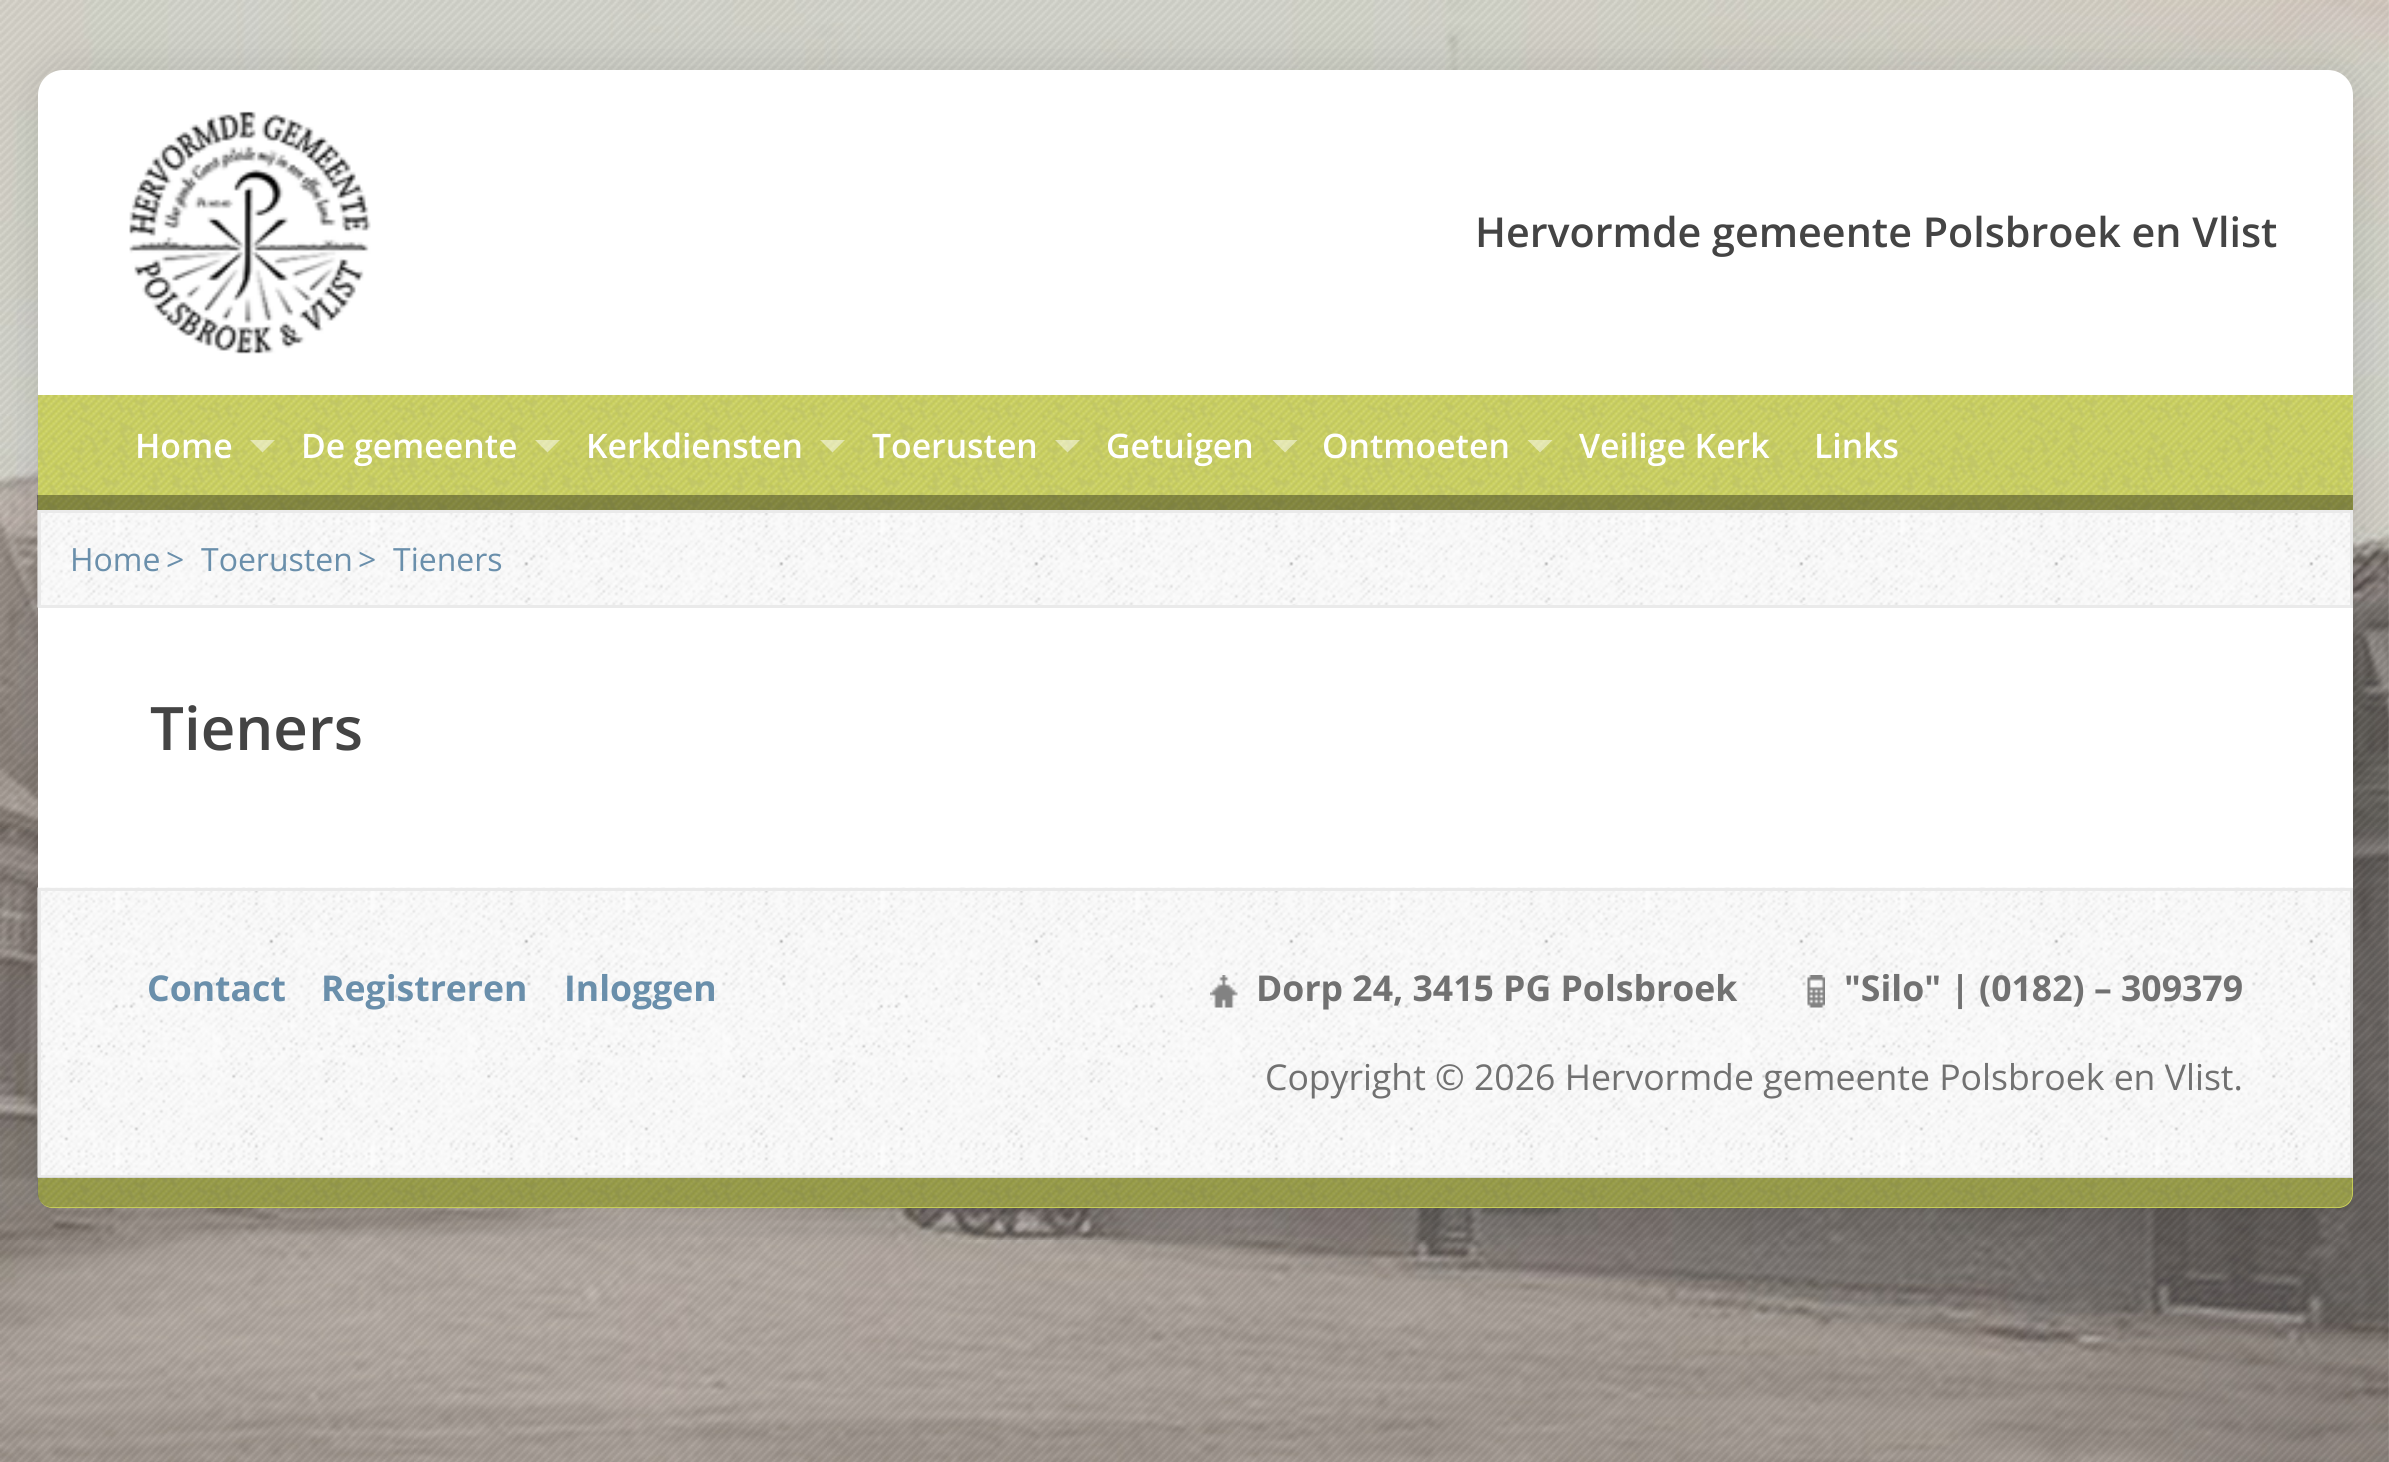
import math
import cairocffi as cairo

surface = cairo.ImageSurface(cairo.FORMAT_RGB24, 2389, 1462)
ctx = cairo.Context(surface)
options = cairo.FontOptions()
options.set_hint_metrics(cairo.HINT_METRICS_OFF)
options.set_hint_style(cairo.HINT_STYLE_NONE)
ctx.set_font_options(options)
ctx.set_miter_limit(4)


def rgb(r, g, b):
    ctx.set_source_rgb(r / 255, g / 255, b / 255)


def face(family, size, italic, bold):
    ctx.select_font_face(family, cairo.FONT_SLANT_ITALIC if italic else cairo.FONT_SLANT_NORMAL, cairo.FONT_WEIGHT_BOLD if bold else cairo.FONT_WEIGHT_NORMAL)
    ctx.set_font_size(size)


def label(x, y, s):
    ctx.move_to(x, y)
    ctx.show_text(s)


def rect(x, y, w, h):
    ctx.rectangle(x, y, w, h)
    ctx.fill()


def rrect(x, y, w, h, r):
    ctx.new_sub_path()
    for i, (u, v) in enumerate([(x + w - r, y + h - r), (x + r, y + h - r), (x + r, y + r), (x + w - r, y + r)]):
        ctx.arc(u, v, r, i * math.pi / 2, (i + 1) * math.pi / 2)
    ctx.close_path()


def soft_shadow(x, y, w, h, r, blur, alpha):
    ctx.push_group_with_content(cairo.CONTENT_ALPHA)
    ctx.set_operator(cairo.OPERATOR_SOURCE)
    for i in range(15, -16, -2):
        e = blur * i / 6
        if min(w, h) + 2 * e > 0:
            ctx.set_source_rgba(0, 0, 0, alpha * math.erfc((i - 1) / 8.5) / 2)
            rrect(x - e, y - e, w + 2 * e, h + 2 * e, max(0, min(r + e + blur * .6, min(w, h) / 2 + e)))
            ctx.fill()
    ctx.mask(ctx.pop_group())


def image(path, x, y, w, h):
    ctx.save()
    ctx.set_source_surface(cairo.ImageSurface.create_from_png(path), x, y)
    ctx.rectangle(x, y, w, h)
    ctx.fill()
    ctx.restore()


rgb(255, 255, 255)
ctx.paint()
image('image0.png', 0, 0, 2389, 1462)
rgb(0, 0, 0)
soft_shadow(38, 70, 2315, 1138, 25, 25, 0.12)
rgb(255, 255, 255)
rrect(38, 70, 2315, 1138, 25)
ctx.fill()
image('image1.png', 129, 111, 242, 243)
face('Open Sans SemiBold', 41.25, 0, 0)
rgb(68, 68, 68)
label(1475, 247, 'Hervormde gemeente Polsbroek en Vlist')
rgb(214, 221, 91)
rect(38, 395, 2315, 115)
image('image2.png', 37, 395, 2316, 115)
face('Open Sans SemiBold', 33.75, 0, 0)
rgb(255, 255, 255)
label(135, 458, 'Home')
ctx.set_source_rgba(1, 1, 1, 0.5)
ctx.new_path()
ctx.move_to(250, 440)
ctx.line_to(275, 440)
ctx.line_to(262.5, 452.5)
ctx.close_path()
ctx.fill()
rgb(255, 255, 255)
label(301, 458, 'De gemeente')
ctx.set_source_rgba(1, 1, 1, 0.5)
ctx.new_path()
ctx.move_to(535, 440)
ctx.line_to(560, 440)
ctx.line_to(547.5, 452.5)
ctx.close_path()
ctx.fill()
rgb(255, 255, 255)
label(586, 458, 'Kerkdiensten')
ctx.set_source_rgba(1, 1, 1, 0.5)
ctx.new_path()
ctx.move_to(820, 440)
ctx.line_to(845, 440)
ctx.line_to(832.5, 452.5)
ctx.close_path()
ctx.fill()
rgb(255, 255, 255)
label(872, 458, 'Toerusten')
ctx.set_source_rgba(1, 1, 1, 0.5)
ctx.new_path()
ctx.move_to(1055, 440)
ctx.line_to(1080, 440)
ctx.line_to(1067.5, 452.5)
ctx.close_path()
ctx.fill()
rgb(255, 255, 255)
label(1106, 458, 'Getuigen')
ctx.set_source_rgba(1, 1, 1, 0.5)
ctx.new_path()
ctx.move_to(1272.5, 440)
ctx.line_to(1297.5, 440)
ctx.line_to(1285, 452.5)
ctx.close_path()
ctx.fill()
rgb(255, 255, 255)
label(1322, 458, 'Ontmoeten')
ctx.set_source_rgba(1, 1, 1, 0.5)
ctx.new_path()
ctx.move_to(1527.5, 440)
ctx.line_to(1552.5, 440)
ctx.line_to(1540, 452.5)
ctx.close_path()
ctx.fill()
rgb(255, 255, 255)
label(1579, 458, 'Veilige Kerk')
label(1814, 458, 'Links')
ctx.set_source_rgba(0, 0, 0, 0.35)
rect(37, 495, 2316, 15)
image('image3.png', 37, 510, 2313, 98)
ctx.rectangle(39.5, 511.5, 2312, 95)
rgb(234, 234, 234)
ctx.set_line_width(3)
ctx.stroke()
face('Open Sans', 32, 0, 0)
rgb(106, 143, 171)
label(70, 571, 'Home')
label(166, 571, '>')
label(201, 571, 'Toerusten')
label(358, 571, '>')
label(393, 571, 'Tieners')
face('Open Sans SemiBold', 60, 0, 0)
rgb(68, 68, 68)
label(150, 750, 'Tieners')
image('image4.png', 37, 887, 2316, 291)
ctx.rectangle(39.5, 889.5, 2312, 287)
rgb(234, 234, 234)
ctx.stroke()
face('Open Sans', 35.6, 0, 1)
rgb(106, 143, 171)
label(147, 1001, 'Contact')
label(321, 1001, 'Registreren')
label(564, 1001, 'Inloggen')
image('image5.png', 1210, 975, 28, 33)
rgb(113, 113, 113)
label(1256, 1001, 'Dorp 24, 3415 PG Polsbroek')
image('image6.png', 1807, 975, 18, 33)
label(1844, 1001, '"Silo" | (0182) – 309379')
face('Open Sans', 35.6, 0, 0)
label(1265, 1090, 'Copyright © 2026 Hervormde gemeente Polsbroek en Vlist.')
rgb(214, 221, 91)
ctx.new_path()
ctx.move_to(38, 1178)
ctx.line_to(2353, 1178)
ctx.line_to(2353, 1193)
ctx.curve_to(2353, 1201.5, 2346.5, 1208, 2338, 1208)
ctx.line_to(53, 1208)
ctx.curve_to(44.5, 1208, 38, 1201.5, 38, 1193)
ctx.close_path()
ctx.fill()
image('image7.png', 37, 1177, 2316, 31)
surface.write_to_png('render.png')
